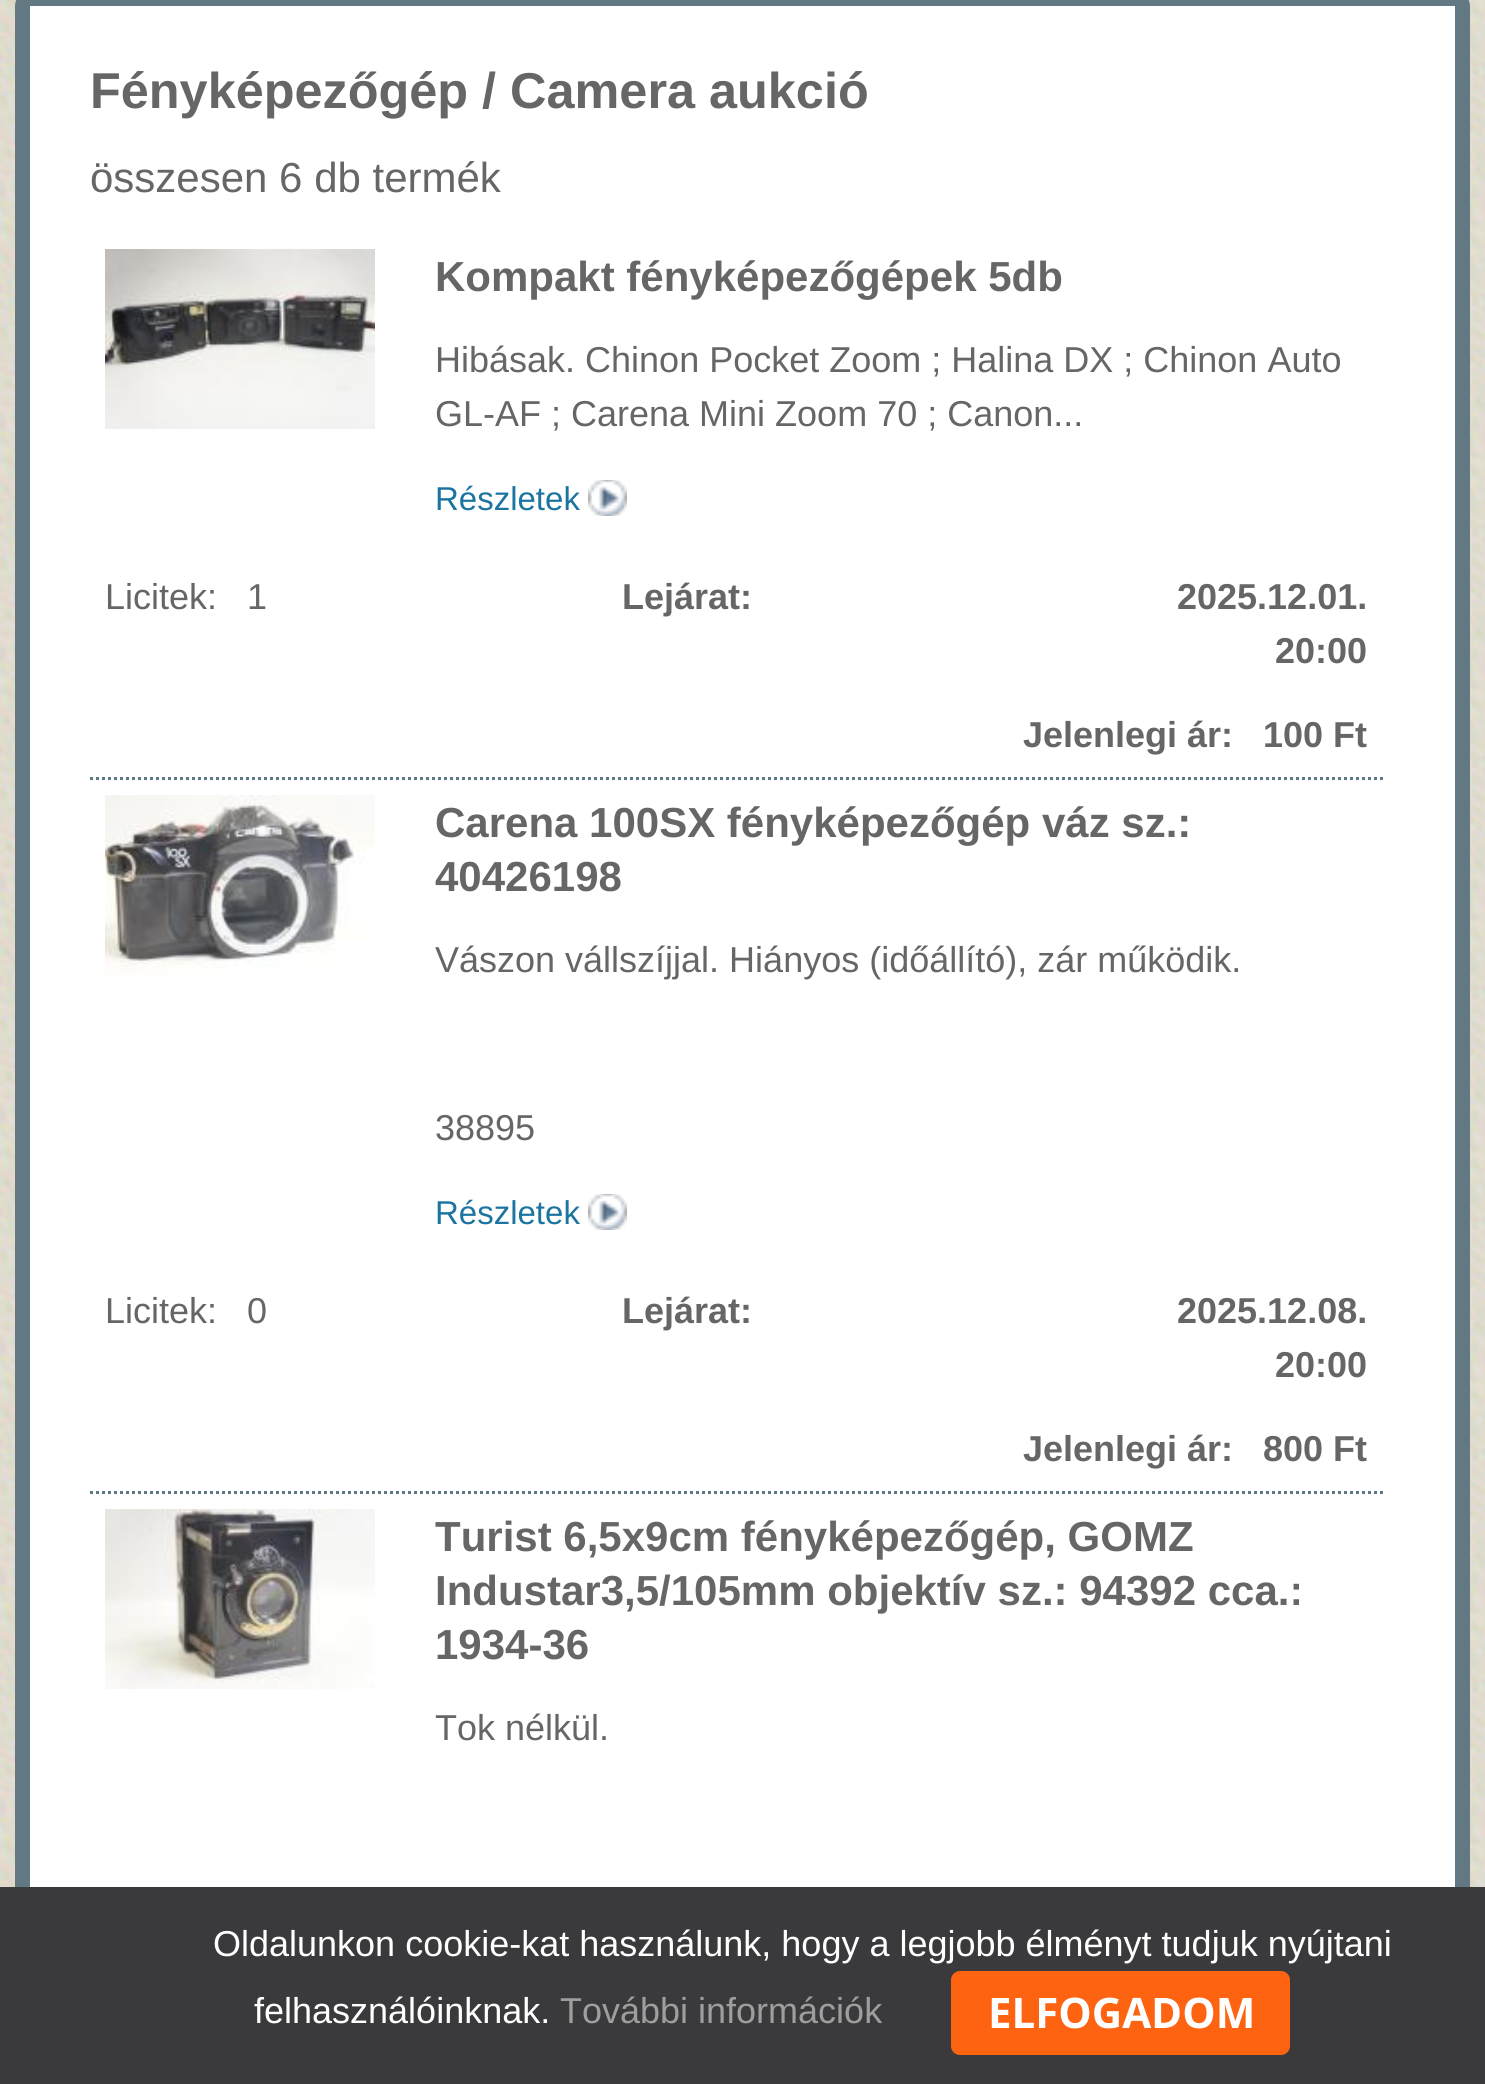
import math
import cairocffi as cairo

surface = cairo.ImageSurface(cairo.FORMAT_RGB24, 1485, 2084)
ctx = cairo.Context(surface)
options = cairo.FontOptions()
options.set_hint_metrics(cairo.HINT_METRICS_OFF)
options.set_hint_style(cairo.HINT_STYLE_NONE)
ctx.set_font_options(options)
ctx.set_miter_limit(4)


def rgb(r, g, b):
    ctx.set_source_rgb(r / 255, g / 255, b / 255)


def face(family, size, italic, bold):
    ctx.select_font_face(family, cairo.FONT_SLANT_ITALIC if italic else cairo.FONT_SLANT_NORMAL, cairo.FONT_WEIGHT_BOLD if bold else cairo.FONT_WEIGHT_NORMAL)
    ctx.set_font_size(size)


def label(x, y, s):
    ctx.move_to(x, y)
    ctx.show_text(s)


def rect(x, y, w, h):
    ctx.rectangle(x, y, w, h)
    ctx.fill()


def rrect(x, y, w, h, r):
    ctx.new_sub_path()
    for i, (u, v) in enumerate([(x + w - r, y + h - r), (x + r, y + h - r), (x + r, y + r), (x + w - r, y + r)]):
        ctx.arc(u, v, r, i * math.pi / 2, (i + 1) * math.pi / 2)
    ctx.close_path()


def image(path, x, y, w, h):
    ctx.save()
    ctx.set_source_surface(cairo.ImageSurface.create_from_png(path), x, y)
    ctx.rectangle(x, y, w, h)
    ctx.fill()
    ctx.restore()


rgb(255, 255, 255)
ctx.paint()
image('image0.png', 0, 0, 1485, 1887)
rgb(255, 255, 255)
rrect(22.5, -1.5, 1440, 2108, 7.5)
ctx.fill_preserve()
rgb(98, 120, 131)
ctx.set_line_width(15)
ctx.stroke()
face('Liberation Sans', 50.4, 0, 1)
rgb(102, 102, 102)
label(90, 108, 'Fényképezőgép / Camera aukció')
face('Liberation Sans', 42, 0, 0)
label(90, 192, 'összesen 6 db termék')
ctx.new_path()
ctx.move_to(90, 778.5)
ctx.line_to(1383, 778.5)
rgb(92, 120, 132)
ctx.set_line_width(3)
ctx.set_dash([3, 3])
ctx.stroke()
image('image1.png', 105, 249, 270, 180)
face('Liberation Sans', 42, 0, 1)
rgb(102, 102, 102)
label(435, 291, 'Kompakt fényképezőgépek 5db')
face('Liberation Sans', 36, 0, 0)
label(435, 372, 'Hibásak. Chinon Pocket Zoom ; Halina DX ; Chinon Auto')
label(435, 426, 'GL-AF ; Carena Mini Zoom 70 ; Canon...')
face('Liberation Sans', 33, 0, 0)
rgb(28, 117, 161)
label(435, 510, 'Részletek')
image('image2.png', 588, 480, 39, 36)
face('Liberation Sans', 36, 0, 0)
rgb(102, 102, 102)
label(105, 609, 'Licitek:')
label(247, 609, '1')
face('Liberation Sans', 36, 0, 1)
label(622, 609, 'Lejárat:')
label(1177, 609, '2025.12.01.')
label(1275, 663, '20:00')
label(1023, 747, 'Jelenlegi ár:')
label(1263, 747, '100 Ft')
ctx.new_path()
ctx.move_to(90, 1492.5)
ctx.line_to(1383, 1492.5)
rgb(92, 120, 132)
ctx.stroke()
image('image3.png', 105, 795, 270, 180)
face('Liberation Sans', 42, 0, 1)
rgb(102, 102, 102)
label(435, 837, 'Carena 100SX fényképezőgép váz sz.:')
label(435, 891, '40426198')
face('Liberation Sans', 36, 0, 0)
label(435, 972, 'Vászon vállszíjjal. Hiányos (időállító), zár működik.')
label(435, 1140, '38895')
face('Liberation Sans', 33, 0, 0)
rgb(28, 117, 161)
label(435, 1224, 'Részletek')
image('image2.png', 588, 1194, 39, 36)
face('Liberation Sans', 36, 0, 0)
rgb(102, 102, 102)
label(105, 1323, 'Licitek:')
label(247, 1323, '0')
face('Liberation Sans', 36, 0, 1)
label(622, 1323, 'Lejárat:')
label(1177, 1323, '2025.12.08.')
label(1275, 1377, '20:00')
label(1023, 1461, 'Jelenlegi ár:')
label(1263, 1461, '800 Ft')
image('image4.png', 105, 1509, 270, 180)
face('Liberation Sans', 42, 0, 1)
label(435, 1551, 'Turist 6,5x9cm fényképezőgép, GOMZ')
label(435, 1605, 'Industar3,5/105mm objektív sz.: 94392 cca.:')
label(435, 1659, '1934-36')
face('Liberation Sans', 36, 0, 0)
label(435, 1740, 'Tok nélkül.')
rgb(58, 57, 59)
rect(0, 1887, 1485, 197)
rgb(255, 255, 255)
label(213, 1956, 'Oldalunkon cookie-kat használunk, hogy a legjobb élményt tudjuk nyújtani')
label(254, 2023, 'felhasználóinknak.')
rgb(158, 158, 158)
label(560, 2023, 'További információk')
rgb(254, 99, 17)
rrect(951, 1971, 339, 84, 9)
ctx.fill()
face('Open Sans', 42, 0, 1)
rgb(255, 255, 255)
label(988, 2028, 'ELFOGADOM')
surface.write_to_png('render.png')
